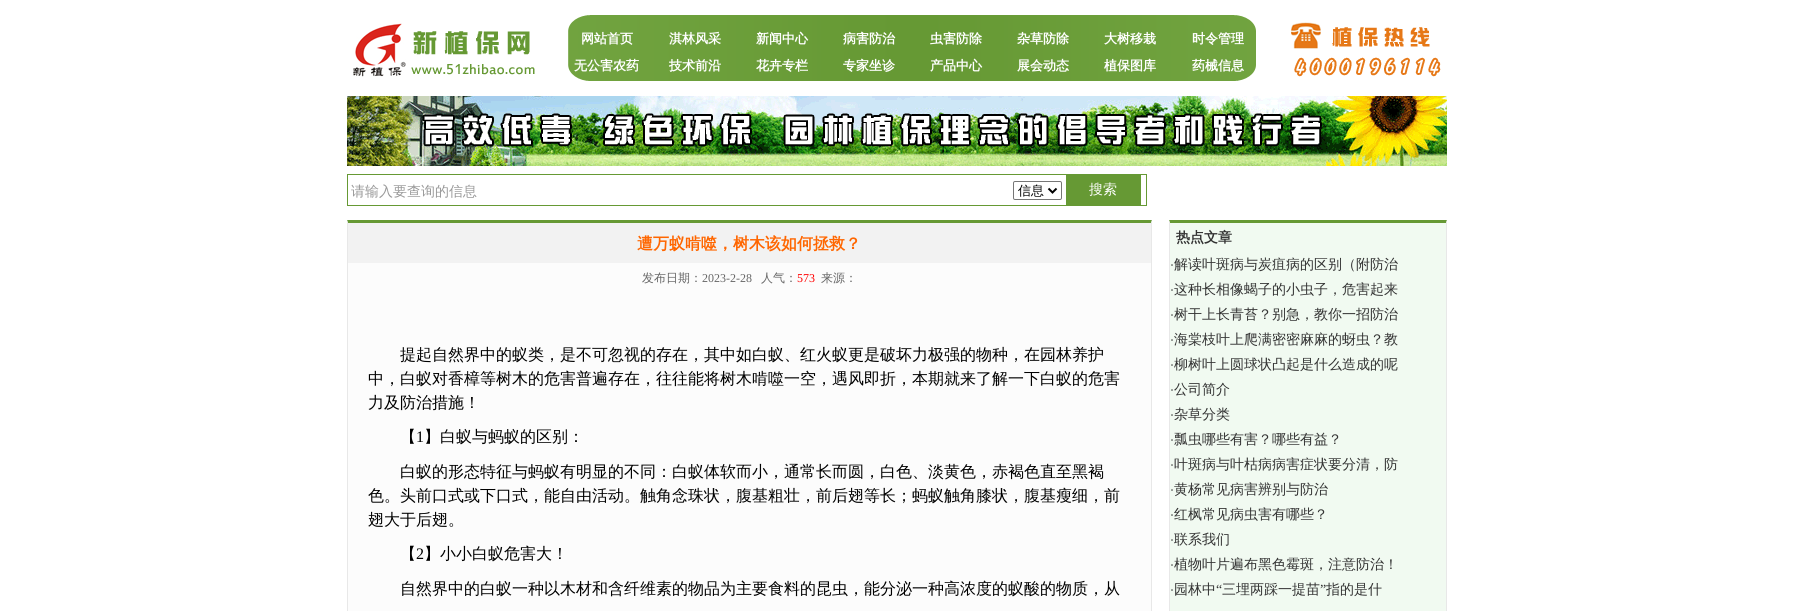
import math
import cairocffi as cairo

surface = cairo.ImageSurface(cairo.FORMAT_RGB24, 1793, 611)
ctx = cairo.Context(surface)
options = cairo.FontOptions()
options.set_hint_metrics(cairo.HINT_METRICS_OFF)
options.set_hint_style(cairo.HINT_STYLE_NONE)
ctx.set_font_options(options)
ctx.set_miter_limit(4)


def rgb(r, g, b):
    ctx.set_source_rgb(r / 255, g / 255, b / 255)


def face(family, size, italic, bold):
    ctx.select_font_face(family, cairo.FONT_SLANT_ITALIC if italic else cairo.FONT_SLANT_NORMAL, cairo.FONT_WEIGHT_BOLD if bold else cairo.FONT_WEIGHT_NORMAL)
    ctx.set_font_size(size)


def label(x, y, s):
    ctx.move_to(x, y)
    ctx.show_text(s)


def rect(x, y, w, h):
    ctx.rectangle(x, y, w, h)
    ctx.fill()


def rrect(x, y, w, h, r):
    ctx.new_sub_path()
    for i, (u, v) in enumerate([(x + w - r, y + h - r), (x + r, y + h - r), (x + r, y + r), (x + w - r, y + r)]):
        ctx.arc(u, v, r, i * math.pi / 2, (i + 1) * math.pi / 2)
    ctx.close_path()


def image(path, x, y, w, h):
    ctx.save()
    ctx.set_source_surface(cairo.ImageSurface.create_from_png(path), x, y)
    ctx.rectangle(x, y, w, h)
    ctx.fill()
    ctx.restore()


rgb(255, 255, 255)
ctx.paint()
image('image0.png', 353, 23, 182, 54)
image('image1.png', 568, 15, 688, 66)
face('WenQuanYi Zen Hei', 13, 0, 1)
rgb(255, 255, 255)
label(581, 43, '网站首页')
label(669, 43, '淇林风采')
label(756, 43, '新闻中心')
label(843, 43, '病害防治')
label(930, 43, '虫害防除')
label(1017, 43, '杂草防除')
label(1104, 43, '大树移栽')
label(1192, 43, '时令管理')
label(574, 70, '无公害农药')
label(669, 70, '技术前沿')
label(756, 70, '花卉专栏')
label(843, 70, '专家坐诊')
label(930, 70, '产品中心')
label(1017, 70, '展会动态')
label(1104, 70, '植保图库')
label(1192, 70, '药械信息')
image('image2.png', 1291, 22, 150, 55)
image('image3.png', 347, 96, 1100, 70)
ctx.rectangle(347.5, 174.5, 799, 31)
rgb(102, 153, 52)
ctx.set_line_width(1)
ctx.stroke()
face('WenQuanYi Zen Hei Medium', 14, 0, 0)
rgb(153, 153, 153)
label(351, 196, '请输入要查询的信息')
rrect(1013.5, 181.5, 48, 18, 1.5)
rgb(118, 118, 118)
ctx.stroke()
ctx.new_path()
ctx.move_to(1048.5, 188.5)
ctx.line_to(1052.5, 192.5)
ctx.line_to(1056.5, 188.5)
rgb(0, 0, 0)
ctx.set_line_width(2)
ctx.stroke()
face('WenQuanYi Zen Hei Medium', 13, 0, 0)
label(1018, 195, '信息')
rgb(102, 153, 52)
rect(1066, 175, 75, 30)
face('WenQuanYi Zen Hei Medium', 14, 0, 0)
rgb(255, 255, 255)
label(1089, 194, '搜索')
rgb(102, 153, 52)
ctx.new_path()
ctx.move_to(347, 220)
ctx.line_to(1152, 220)
ctx.line_to(1151, 223)
ctx.line_to(348, 223)
ctx.close_path()
ctx.fill()
rgb(232, 232, 232)
ctx.new_path()
ctx.move_to(1152, 220)
ctx.line_to(1152, 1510)
ctx.line_to(1151, 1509)
ctx.line_to(1151, 223)
ctx.close_path()
ctx.fill()
ctx.new_path()
ctx.move_to(347, 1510)
ctx.line_to(347, 220)
ctx.line_to(348, 223)
ctx.line_to(348, 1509)
ctx.close_path()
ctx.fill()
rgb(242, 242, 242)
rect(348, 223, 803, 40)
face('WenQuanYi Zen Hei', 16, 0, 1)
rgb(255, 102, 0)
label(637, 249, '遭万蚁啃噬，树木该如何拯救？')
rgb(252, 252, 252)
rect(348, 263, 803, 348)
face('WenQuanYi Zen Hei Medium', 12, 0, 0)
rgb(102, 102, 102)
label(642, 282, '发布日期：')
face('Liberation Serif', 12, 0, 0)
label(702, 282, '2023-2-28')
face('WenQuanYi Zen Hei Medium', 12, 0, 0)
label(761, 282, '人气：')
face('Liberation Serif', 12, 0, 0)
rgb(255, 0, 0)
label(797, 282, '573')
face('WenQuanYi Zen Hei Medium', 12, 0, 0)
rgb(102, 102, 102)
label(821, 282, '来源：')
face('WenQuanYi Zen Hei Medium', 16, 0, 0)
rgb(0, 0, 0)
label(400, 360, '提起自然界中的蚁类，是不可忽视的存在，其中如白蚁、红火蚁更是破坏力极强的物种，在园林养护')
label(368, 384, '中，白蚁对香樟等树木的危害普遍存在，往往能将树木啃噬一空，遇风即折，本期就来了解一下白蚁的危害')
label(368, 408, '力及防治措施！')
label(400, 442, '【')
face('Liberation Serif', 16, 0, 0)
label(416, 442, '1')
face('WenQuanYi Zen Hei Medium', 16, 0, 0)
label(424, 442, '】白蚁与蚂蚁的区别：')
label(400, 477, '白蚁的形态特征与蚂蚁有明显的不同：白蚁体软而小，通常长而圆，白色、淡黄色，赤褐色直至黑褐')
label(368, 501, '色。头前口式或下口式，能自由活动。触角念珠状，腹基粗壮，前后翅等长；蚂蚁触角膝状，腹基瘦细，前')
label(368, 525, '翅大于后翅。')
label(400, 559, '【')
face('Liberation Serif', 16, 0, 0)
label(416, 559, '2')
face('WenQuanYi Zen Hei Medium', 16, 0, 0)
label(424, 559, '】小小白蚁危害大！')
label(400, 594, '自然界中的白蚁一种以木材和含纤维素的物品为主要食料的昆虫，能分泌一种高浓度的蚁酸的物质，从')
rgb(241, 250, 241)
rect(1170, 223, 276, 388)
rgb(102, 153, 52)
ctx.new_path()
ctx.move_to(1169, 220)
ctx.line_to(1447, 220)
ctx.line_to(1446, 223)
ctx.line_to(1170, 223)
ctx.close_path()
ctx.fill()
rgb(232, 232, 232)
ctx.new_path()
ctx.move_to(1447, 220)
ctx.line_to(1447, 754)
ctx.line_to(1446, 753)
ctx.line_to(1446, 223)
ctx.close_path()
ctx.fill()
ctx.new_path()
ctx.move_to(1169, 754)
ctx.line_to(1169, 220)
ctx.line_to(1170, 223)
ctx.line_to(1170, 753)
ctx.close_path()
ctx.fill()
face('WenQuanYi Zen Hei', 14, 0, 1)
rgb(51, 51, 51)
label(1176, 242, '热点文章')
face('Liberation Serif', 12, 0, 0)
rgb(0, 0, 0)
label(1170, 269, '·')
face('WenQuanYi Zen Hei Medium', 14, 0, 0)
rgb(51, 51, 51)
label(1174, 269, '解读叶斑病与炭疽病的区别（附防治')
face('Liberation Serif', 12, 0, 0)
rgb(0, 0, 0)
label(1170, 294, '·')
face('WenQuanYi Zen Hei Medium', 14, 0, 0)
rgb(51, 51, 51)
label(1174, 294, '这种长相像蝎子的小虫子，危害起来')
face('Liberation Serif', 12, 0, 0)
rgb(0, 0, 0)
label(1170, 319, '·')
face('WenQuanYi Zen Hei Medium', 14, 0, 0)
rgb(51, 51, 51)
label(1174, 319, '树干上长青苔？别急，教你一招防治')
face('Liberation Serif', 12, 0, 0)
rgb(0, 0, 0)
label(1170, 344, '·')
face('WenQuanYi Zen Hei Medium', 14, 0, 0)
rgb(51, 51, 51)
label(1174, 344, '海棠枝叶上爬满密密麻麻的蚜虫？教')
face('Liberation Serif', 12, 0, 0)
rgb(0, 0, 0)
label(1170, 369, '·')
face('WenQuanYi Zen Hei Medium', 14, 0, 0)
rgb(51, 51, 51)
label(1174, 369, '柳树叶上圆球状凸起是什么造成的呢')
face('Liberation Serif', 12, 0, 0)
rgb(0, 0, 0)
label(1170, 394, '·')
face('WenQuanYi Zen Hei Medium', 14, 0, 0)
rgb(51, 51, 51)
label(1174, 394, '公司简介')
face('Liberation Serif', 12, 0, 0)
rgb(0, 0, 0)
label(1170, 419, '·')
face('WenQuanYi Zen Hei Medium', 14, 0, 0)
rgb(51, 51, 51)
label(1174, 419, '杂草分类')
face('Liberation Serif', 12, 0, 0)
rgb(0, 0, 0)
label(1170, 444, '·')
face('WenQuanYi Zen Hei Medium', 14, 0, 0)
rgb(51, 51, 51)
label(1174, 444, '瓢虫哪些有害？哪些有益？')
face('Liberation Serif', 12, 0, 0)
rgb(0, 0, 0)
label(1170, 469, '·')
face('WenQuanYi Zen Hei Medium', 14, 0, 0)
rgb(51, 51, 51)
label(1174, 469, '叶斑病与叶枯病病害症状要分清，防')
face('Liberation Serif', 12, 0, 0)
rgb(0, 0, 0)
label(1170, 494, '·')
face('WenQuanYi Zen Hei Medium', 14, 0, 0)
rgb(51, 51, 51)
label(1174, 494, '黄杨常见病害辨别与防治')
face('Liberation Serif', 12, 0, 0)
rgb(0, 0, 0)
label(1170, 519, '·')
face('WenQuanYi Zen Hei Medium', 14, 0, 0)
rgb(51, 51, 51)
label(1174, 519, '红枫常见病虫害有哪些？')
face('Liberation Serif', 12, 0, 0)
rgb(0, 0, 0)
label(1170, 544, '·')
face('WenQuanYi Zen Hei Medium', 14, 0, 0)
rgb(51, 51, 51)
label(1174, 544, '联系我们')
face('Liberation Serif', 12, 0, 0)
rgb(0, 0, 0)
label(1170, 569, '·')
face('WenQuanYi Zen Hei Medium', 14, 0, 0)
rgb(51, 51, 51)
label(1174, 569, '植物叶片遍布黑色霉斑，注意防治！')
label(1174, 594, '园林中')
face('Liberation Serif', 14, 0, 0)
label(1216, 594, '“')
face('WenQuanYi Zen Hei Medium', 14, 0, 0)
label(1222, 594, '三埋两踩一提苗')
face('Liberation Serif', 14, 0, 0)
label(1320, 594, '”')
face('WenQuanYi Zen Hei Medium', 14, 0, 0)
label(1326, 594, '指的是什')
face('Liberation Serif', 12, 0, 0)
rgb(0, 0, 0)
label(1170, 594, '·')
surface.write_to_png('render.png')
